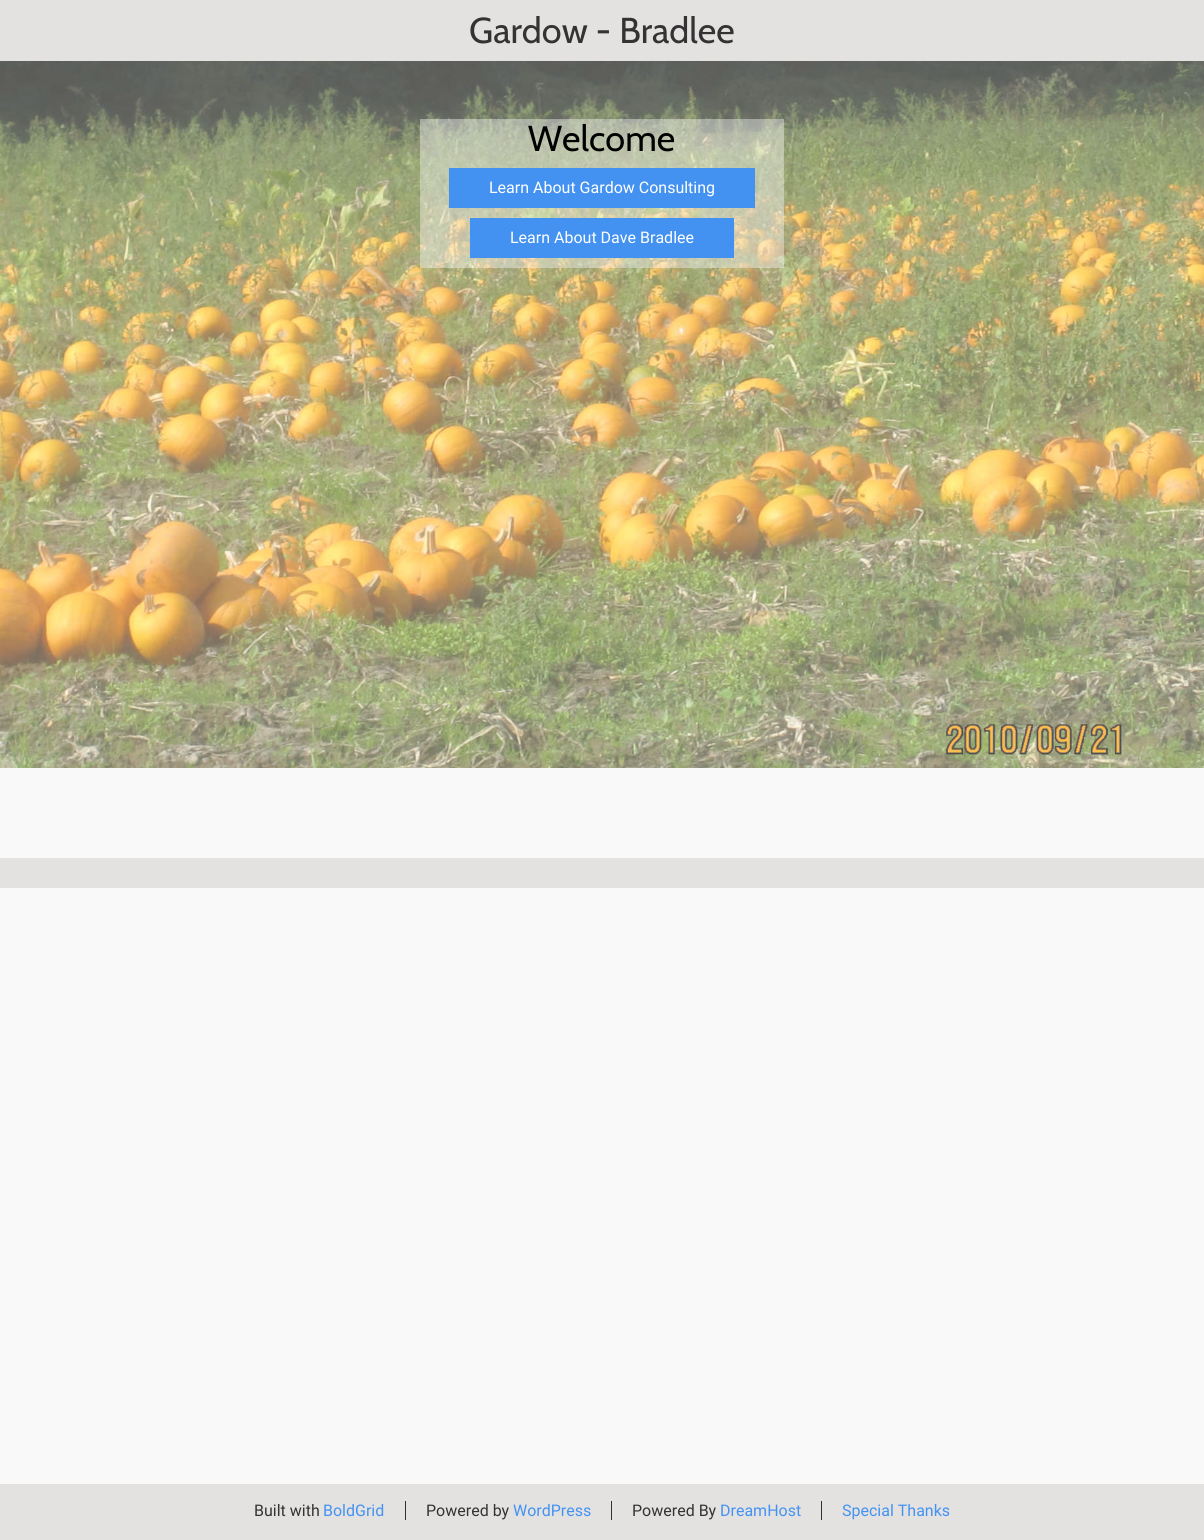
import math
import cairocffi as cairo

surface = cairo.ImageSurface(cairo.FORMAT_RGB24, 1204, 1540)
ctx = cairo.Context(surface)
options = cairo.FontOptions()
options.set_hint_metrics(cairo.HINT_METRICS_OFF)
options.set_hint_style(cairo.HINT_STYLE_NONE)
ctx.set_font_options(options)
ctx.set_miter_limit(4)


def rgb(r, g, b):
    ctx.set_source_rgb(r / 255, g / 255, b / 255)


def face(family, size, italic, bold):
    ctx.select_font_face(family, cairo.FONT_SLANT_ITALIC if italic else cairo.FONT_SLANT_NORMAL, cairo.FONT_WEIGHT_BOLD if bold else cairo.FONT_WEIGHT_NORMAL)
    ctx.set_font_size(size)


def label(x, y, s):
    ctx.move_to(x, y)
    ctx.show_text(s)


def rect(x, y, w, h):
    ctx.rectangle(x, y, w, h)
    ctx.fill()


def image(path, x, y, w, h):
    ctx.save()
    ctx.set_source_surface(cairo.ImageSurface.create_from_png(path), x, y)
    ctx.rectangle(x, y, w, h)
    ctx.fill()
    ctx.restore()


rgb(249, 249, 249)
ctx.paint()
rgb(228, 226, 225)
rect(0, 0, 1204, 61)
face('Cabin', 36, 0, 0)
rgb(51, 51, 51)
label(469, 43, 'Gardow - Bradlee')
image('image0.png', 0, 61, 1204, 707)
ctx.set_source_rgba(0.976, 0.976, 0.976, 0.41)
rect(420, 119, 364, 149)
rgb(0, 0, 0)
label(528, 151, 'Welcome')
rgb(67, 146, 241)
rect(449, 168, 306, 40)
face('Roboto', 16, 0, 0)
rgb(255, 255, 255)
label(489, 193, 'Learn About Gardow Consulting')
rgb(67, 146, 241)
rect(470, 218, 264, 40)
rgb(255, 255, 255)
label(510, 243, 'Learn About Dave Bradlee')
rgb(228, 226, 225)
rect(0, 858, 1204, 30)
rect(0, 1484, 1204, 56)
rgb(51, 51, 51)
label(254, 1516, 'Built with')
rgb(67, 146, 241)
label(323, 1516, 'BoldGrid')
rgb(51, 51, 51)
rect(405, 1501, 1, 19)
label(426, 1516, 'Powered by')
rgb(67, 146, 241)
label(513, 1516, 'WordPress')
rgb(51, 51, 51)
rect(611, 1501, 1, 19)
label(632, 1516, 'Powered By')
rgb(67, 146, 241)
label(720, 1516, 'DreamHost')
rgb(51, 51, 51)
rect(821, 1501, 1, 19)
rgb(67, 146, 241)
label(842, 1516, 'Special Thanks')
surface.write_to_png('render.png')
